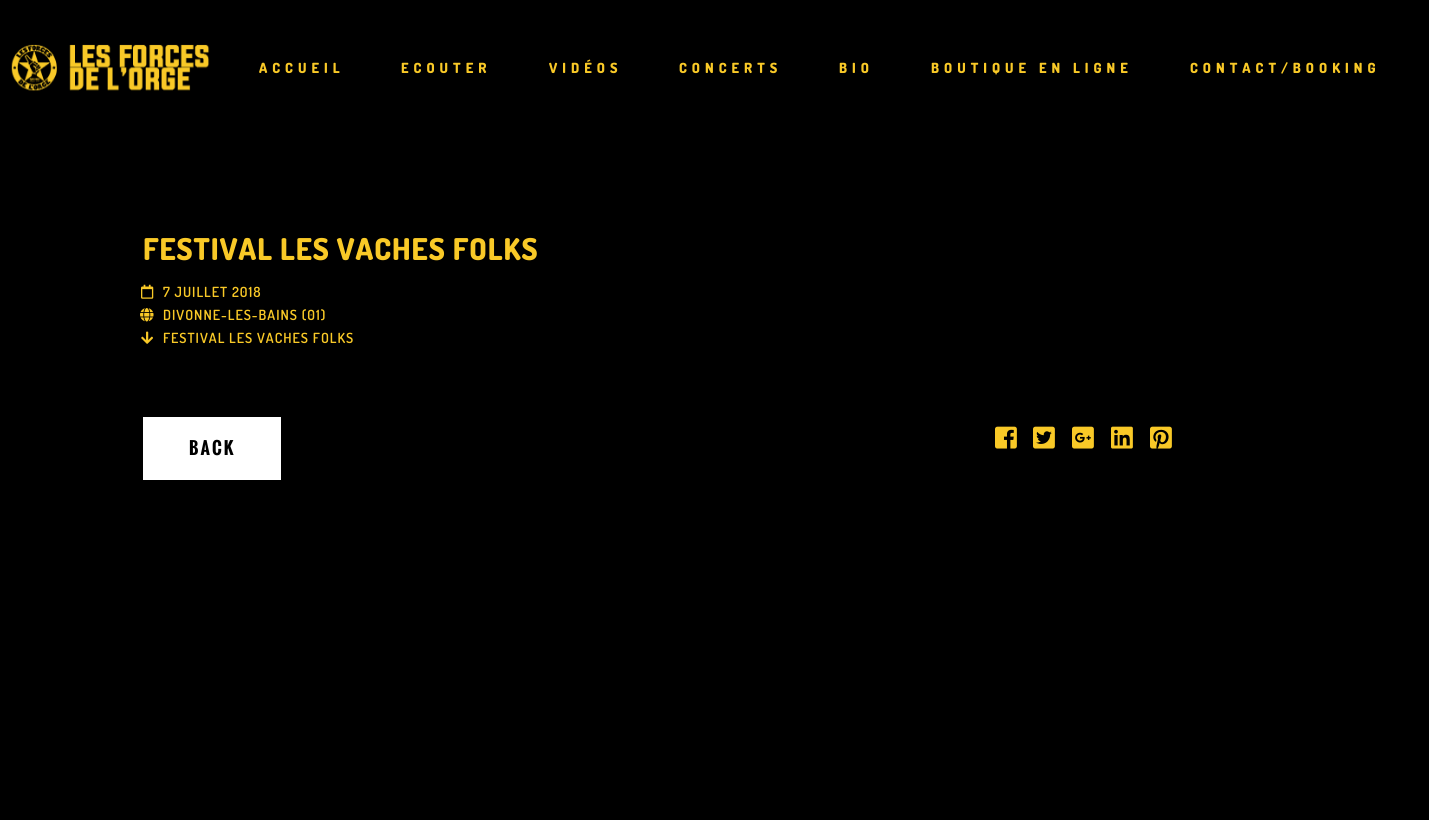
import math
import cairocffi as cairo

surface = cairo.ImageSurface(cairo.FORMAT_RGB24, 1429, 820)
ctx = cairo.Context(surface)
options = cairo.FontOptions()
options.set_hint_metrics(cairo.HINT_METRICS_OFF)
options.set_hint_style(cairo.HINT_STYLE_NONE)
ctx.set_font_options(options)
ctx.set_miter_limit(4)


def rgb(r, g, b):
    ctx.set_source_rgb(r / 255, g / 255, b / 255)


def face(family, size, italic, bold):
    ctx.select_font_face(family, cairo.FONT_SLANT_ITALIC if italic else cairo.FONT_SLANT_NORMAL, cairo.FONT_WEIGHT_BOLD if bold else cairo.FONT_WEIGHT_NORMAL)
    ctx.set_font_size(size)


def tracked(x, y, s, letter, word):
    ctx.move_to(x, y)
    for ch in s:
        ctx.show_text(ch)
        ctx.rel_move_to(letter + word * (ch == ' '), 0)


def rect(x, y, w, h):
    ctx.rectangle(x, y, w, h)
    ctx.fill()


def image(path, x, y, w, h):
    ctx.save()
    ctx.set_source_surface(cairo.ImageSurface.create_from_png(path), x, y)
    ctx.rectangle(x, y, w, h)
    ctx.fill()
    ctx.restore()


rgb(0, 0, 0)
ctx.paint()
image('image0.png', 11, 44, 199, 47)
face('Dosis ExtraBold', 14, 0, 0)
rgb(249, 201, 39)
tracked(259, 73, 'ACCUEIL', 5, 0)
tracked(401, 73, 'ECOUTER', 5, 0)
tracked(549, 73, 'VIDÉOS', 5, 0)
tracked(679, 73, 'CONCERTS', 5, 0)
tracked(839, 73, 'BIO', 5, 0)
tracked(931, 73, 'BOUTIQUE EN LIGNE', 5, 0)
tracked(1190, 73, 'CONTACT/BOOKING', 5, 0)
face('Dosis ExtraBold', 30, 0, 0)
tracked(143, 260, 'FESTIVAL LES VACHES FOLKS', 1, 0)
image('image1.png', 141, 284, 13, 15)
face('Dosis SemiBold', 14, 0, 0)
tracked(163, 297, '7 JUILLET 2018', 1, 0)
image('image2.png', 140, 308, 14, 14)
tracked(163, 320, 'DIVONNE-LES-BAINS (01)', 1, 0)
image('image3.png', 141, 331, 12, 13)
tracked(163, 343, 'FESTIVAL LES VACHES FOLKS', 1, 0)
rgb(255, 255, 255)
rect(143, 417, 138, 63)
face('Oswald', 17, 0, 1)
rgb(0, 0, 0)
tracked(189, 455, 'BACK', 2, 0)
image('image4.png', 995, 426, 22, 23)
image('image5.png', 1033, 426, 22, 23)
image('image6.png', 1072, 426, 22, 23)
image('image7.png', 1111, 426, 22, 23)
image('image8.png', 1150, 426, 22, 23)
surface.write_to_png('render.png')
